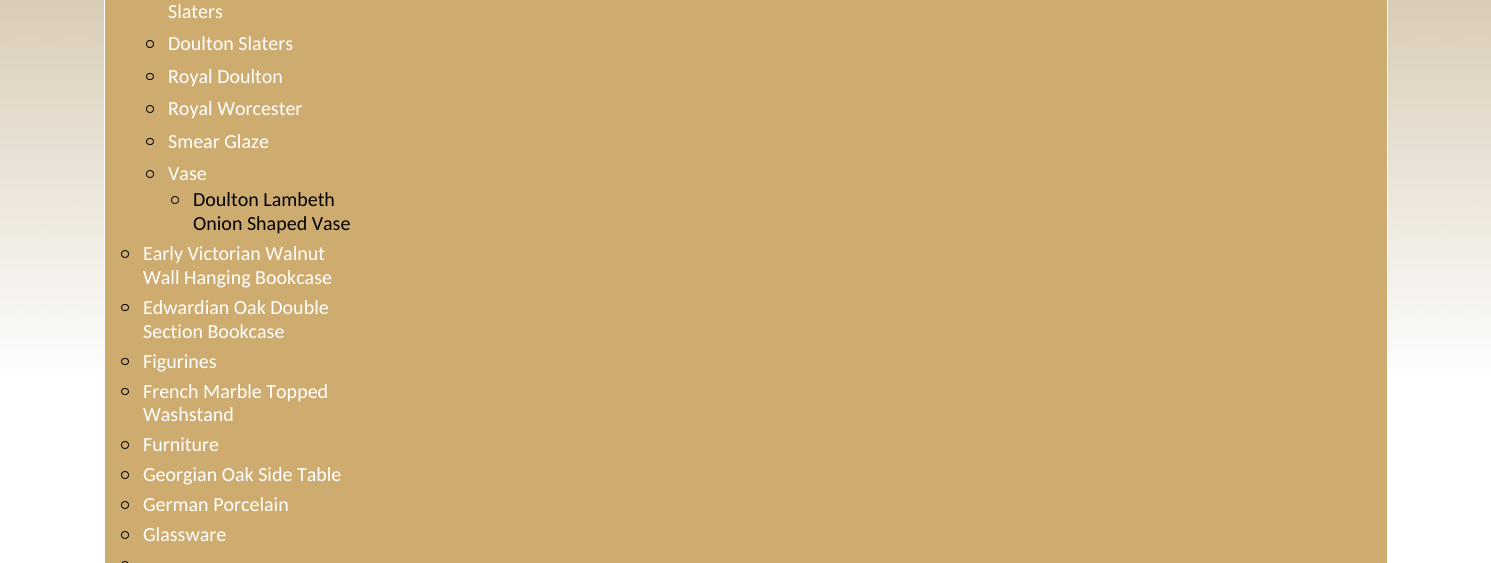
import math
import cairocffi as cairo

surface = cairo.ImageSurface(cairo.FORMAT_RGB24, 1491, 563)
ctx = cairo.Context(surface)
options = cairo.FontOptions()
options.set_hint_metrics(cairo.HINT_METRICS_OFF)
options.set_hint_style(cairo.HINT_STYLE_NONE)
ctx.set_font_options(options)
ctx.set_miter_limit(4)


def rgb(r, g, b):
    ctx.set_source_rgb(r / 255, g / 255, b / 255)


def face(family, size, italic, bold):
    ctx.select_font_face(family, cairo.FONT_SLANT_ITALIC if italic else cairo.FONT_SLANT_NORMAL, cairo.FONT_WEIGHT_BOLD if bold else cairo.FONT_WEIGHT_NORMAL)
    ctx.set_font_size(size)


def label(x, y, s):
    ctx.move_to(x, y)
    ctx.show_text(s)


def rrect(x, y, w, h, r):
    ctx.new_sub_path()
    for i, (u, v) in enumerate([(x + w - r, y + h - r), (x + r, y + h - r), (x + r, y + r), (x + w - r, y + r)]):
        ctx.arc(u, v, r, i * math.pi / 2, (i + 1) * math.pi / 2)
    ctx.close_path()


def image(path, x, y, w, h):
    ctx.save()
    ctx.set_source_surface(cairo.ImageSurface.create_from_png(path), x, y)
    ctx.rectangle(x, y, w, h)
    ctx.fill()
    ctx.restore()


rgb(255, 255, 255)
ctx.paint()
image('image0.png', 0, 0, 1491, 370)
image('image1.png', 10, 0, 1471, 370)
rgb(206, 172, 112)
ctx.rectangle(104.5, -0.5, 1283, 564)
ctx.fill_preserve()
rgb(255, 255, 255)
ctx.set_line_width(1)
ctx.stroke()
face('Carlito', 20, 0, 0)
label(168, 18, 'Slaters')
ctx.new_path()
ctx.arc(150, 44, 3.5, 0, 2 * math.pi)
rgb(0, 0, 0)
ctx.stroke()
rgb(255, 255, 255)
label(168, 50, 'Doulton Slaters')
rrect(146.5, 73.5, 7, 6, 3)
rgb(0, 0, 0)
ctx.stroke()
rgb(255, 255, 255)
label(168, 83, 'Royal Doulton')
ctx.new_path()
ctx.arc(150, 109, 3.5, 0, 2 * math.pi)
rgb(0, 0, 0)
ctx.stroke()
rgb(255, 255, 255)
label(168, 115, 'Royal Worcester')
rrect(146.5, 138.5, 7, 6, 3)
rgb(0, 0, 0)
ctx.stroke()
rgb(255, 255, 255)
label(168, 148, 'Smear Glaze')
ctx.new_path()
ctx.arc(150, 174, 3.5, 0, 2 * math.pi)
rgb(0, 0, 0)
ctx.stroke()
rgb(255, 255, 255)
label(168, 180, 'Vase')
ctx.new_path()
ctx.arc(175, 200, 3.5, 0, 2 * math.pi)
rgb(0, 0, 0)
ctx.stroke()
label(193, 206, 'Doulton Lambeth')
label(193, 230, 'Onion Shaped Vase')
ctx.new_path()
ctx.arc(125, 254, 3.5, 0, 2 * math.pi)
ctx.stroke()
rgb(255, 255, 255)
label(143, 260, 'Early Victorian Walnut')
label(143, 284, 'Wall Hanging Bookcase')
rrect(121.5, 304.5, 7, 6, 3)
rgb(0, 0, 0)
ctx.stroke()
rgb(255, 255, 255)
label(143, 314, 'Edwardian Oak Double')
label(143, 338, 'Section Bookcase')
rrect(121.5, 358.5, 7, 6, 3)
rgb(0, 0, 0)
ctx.stroke()
rgb(255, 255, 255)
label(143, 368, 'Figurines')
rrect(121.5, 388.5, 7, 6, 3)
rgb(0, 0, 0)
ctx.stroke()
rgb(255, 255, 255)
label(143, 398, 'French Marble Topped')
label(143, 421, 'Washstand')
ctx.new_path()
ctx.arc(125, 445, 3.5, 0, 2 * math.pi)
rgb(0, 0, 0)
ctx.stroke()
rgb(255, 255, 255)
label(143, 451, 'Furniture')
ctx.new_path()
ctx.arc(125, 475, 3.5, 0, 2 * math.pi)
rgb(0, 0, 0)
ctx.stroke()
rgb(255, 255, 255)
label(143, 481, 'Georgian Oak Side Table')
ctx.new_path()
ctx.arc(125, 505, 3.5, 0, 2 * math.pi)
rgb(0, 0, 0)
ctx.stroke()
rgb(255, 255, 255)
label(143, 511, 'German Porcelain')
ctx.new_path()
ctx.arc(125, 535, 3.5, 0, 2 * math.pi)
rgb(0, 0, 0)
ctx.stroke()
rgb(255, 255, 255)
label(143, 541, 'Glassware')
rrect(121.5, 561.5, 7, 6, 3.5)
rgb(0, 0, 0)
ctx.stroke()
surface.write_to_png('render.png')
